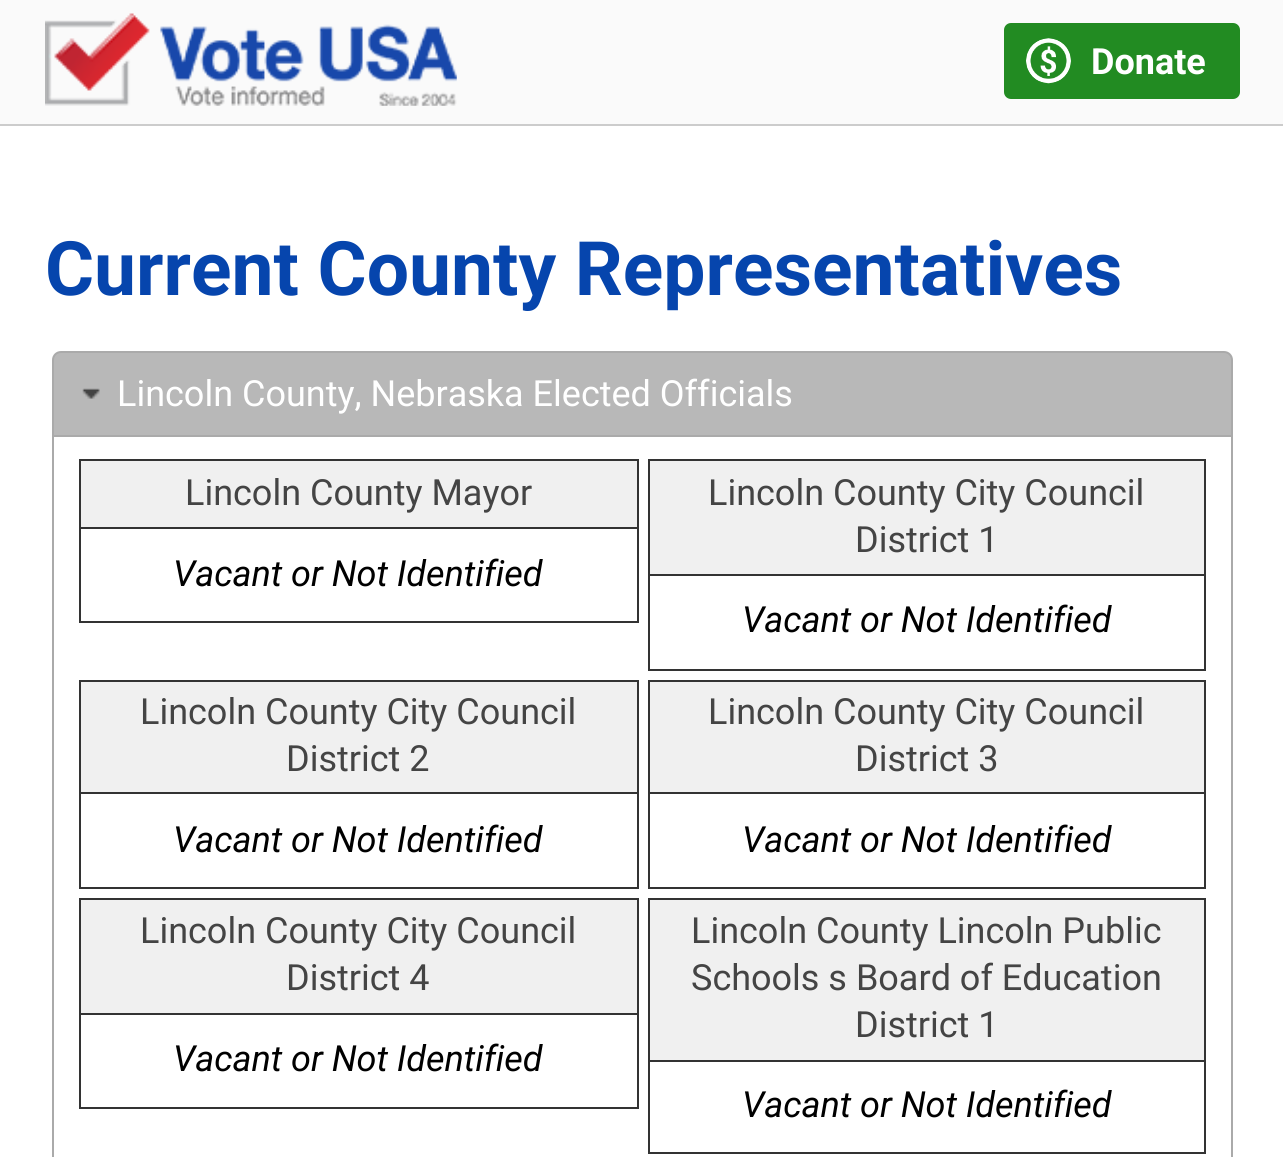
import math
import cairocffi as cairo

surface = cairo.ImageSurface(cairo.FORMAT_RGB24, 1283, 1157)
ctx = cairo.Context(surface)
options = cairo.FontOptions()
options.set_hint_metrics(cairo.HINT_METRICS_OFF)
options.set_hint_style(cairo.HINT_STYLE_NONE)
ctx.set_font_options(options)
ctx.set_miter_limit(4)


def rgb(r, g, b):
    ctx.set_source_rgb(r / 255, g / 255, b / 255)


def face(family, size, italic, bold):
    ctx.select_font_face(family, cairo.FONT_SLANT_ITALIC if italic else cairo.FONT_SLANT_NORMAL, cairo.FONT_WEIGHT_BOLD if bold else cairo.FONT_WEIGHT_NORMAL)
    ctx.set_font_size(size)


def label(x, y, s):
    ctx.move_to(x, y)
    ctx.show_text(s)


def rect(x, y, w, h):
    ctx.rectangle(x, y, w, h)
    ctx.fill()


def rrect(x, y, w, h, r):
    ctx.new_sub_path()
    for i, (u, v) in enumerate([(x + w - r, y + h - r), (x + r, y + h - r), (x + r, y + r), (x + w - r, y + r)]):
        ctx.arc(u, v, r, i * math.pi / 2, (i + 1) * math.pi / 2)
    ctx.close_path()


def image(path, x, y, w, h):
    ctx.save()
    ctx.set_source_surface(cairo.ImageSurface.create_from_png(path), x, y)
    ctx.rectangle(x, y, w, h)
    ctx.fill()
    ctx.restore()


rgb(255, 255, 255)
ctx.paint()
rgb(250, 250, 250)
rect(0, 0, 1283, 124)
rgb(204, 204, 204)
rect(0, 124, 1283, 2)
image('image0.png', 45, 13, 412, 93)
rgb(34, 139, 34)
rrect(1006.5, 25.5, 231, 71, 4.5)
ctx.fill_preserve()
ctx.set_line_width(5)
ctx.stroke()
image('image1.png', 1026, 38, 45, 46)
face('Roboto', 36, 0, 1)
rgb(255, 255, 255)
label(1091, 74, 'Donate')
face('Roboto', 75, 0, 1)
rgb(6, 69, 173)
label(45, 295, 'Current County Representatives')
rgb(170, 170, 170)
ctx.set_fill_rule(cairo.FILL_RULE_EVEN_ODD)
ctx.new_path()
ctx.move_to(52, 436)
ctx.line_to(1233, 436)
ctx.line_to(1233, 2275)
ctx.curve_to(1233, 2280, 1229, 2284, 1224, 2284)
ctx.line_to(61, 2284)
ctx.curve_to(56, 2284, 52, 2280, 52, 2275)
ctx.close_path()
ctx.move_to(54, 436)
ctx.line_to(1231, 436)
ctx.line_to(1231, 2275)
ctx.curve_to(1231, 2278, 1228, 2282, 1224, 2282)
ctx.line_to(61, 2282)
ctx.curve_to(57, 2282, 54, 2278, 54, 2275)
ctx.close_path()
ctx.fill()
rgb(184, 184, 184)
ctx.new_path()
ctx.move_to(61, 352)
ctx.line_to(1224, 352)
ctx.curve_to(1228.5, 352, 1232, 355.5, 1232, 360)
ctx.line_to(1232, 436)
ctx.line_to(53, 436)
ctx.line_to(53, 360)
ctx.curve_to(53, 355.5, 56.5, 352, 61, 352)
ctx.close_path()
ctx.fill_preserve()
rgb(170, 170, 170)
ctx.set_line_width(2)
ctx.stroke()
image('image2.png', 82, 388, 18, 11)
face('Roboto', 36, 0, 0)
rgb(255, 255, 255)
label(117, 406, 'Lincoln County, Nebraska Elected Officials')
ctx.rectangle(80, 460, 558, 162)
rgb(51, 51, 51)
ctx.stroke()
rgb(240, 240, 240)
rect(81, 461, 556, 66)
rgb(51, 51, 51)
rect(81, 527, 556, 2)
rgb(68, 68, 68)
label(185, 505, 'Lincoln County Mayor')
face('Roboto', 36, 1, 0)
rgb(0, 0, 0)
label(173, 586, 'Vacant or Not Identified')
ctx.rectangle(649, 460, 556, 210)
rgb(51, 51, 51)
ctx.stroke()
rgb(240, 240, 240)
rect(650, 461, 554, 113)
rgb(51, 51, 51)
rect(650, 574, 554, 2)
face('Roboto', 36, 0, 0)
rgb(68, 68, 68)
label(708, 505, 'Lincoln County City Council')
label(855, 552, 'District 1')
face('Roboto', 36, 1, 0)
rgb(0, 0, 0)
label(742, 632, 'Vacant or Not Identified')
ctx.rectangle(80, 681, 558, 207)
rgb(51, 51, 51)
ctx.stroke()
rgb(240, 240, 240)
rect(81, 682, 556, 110)
rgb(51, 51, 51)
rect(81, 792, 556, 2)
face('Roboto', 36, 0, 0)
rgb(68, 68, 68)
label(140, 724, 'Lincoln County City Council')
label(286, 771, 'District 2')
face('Roboto', 36, 1, 0)
rgb(0, 0, 0)
label(173, 852, 'Vacant or Not Identified')
ctx.rectangle(649, 681, 556, 207)
rgb(51, 51, 51)
ctx.stroke()
rgb(240, 240, 240)
rect(650, 682, 554, 110)
rgb(51, 51, 51)
rect(650, 792, 554, 2)
face('Roboto', 36, 0, 0)
rgb(68, 68, 68)
label(708, 724, 'Lincoln County City Council')
label(855, 771, 'District 3')
face('Roboto', 36, 1, 0)
rgb(0, 0, 0)
label(742, 852, 'Vacant or Not Identified')
ctx.rectangle(80, 899, 558, 209)
rgb(51, 51, 51)
ctx.stroke()
rgb(240, 240, 240)
rect(81, 900, 556, 113)
rgb(51, 51, 51)
rect(81, 1013, 556, 2)
face('Roboto', 36, 0, 0)
rgb(68, 68, 68)
label(140, 943, 'Lincoln County City Council')
label(286, 990, 'District 4')
face('Roboto', 36, 1, 0)
rgb(0, 0, 0)
label(173, 1071, 'Vacant or Not Identified')
ctx.rectangle(649, 899, 556, 254)
rgb(51, 51, 51)
ctx.stroke()
rgb(240, 240, 240)
rect(650, 900, 554, 160)
rgb(51, 51, 51)
rect(650, 1060, 554, 2)
face('Roboto', 36, 0, 0)
rgb(68, 68, 68)
label(691, 943, 'Lincoln County Lincoln Public')
label(691, 990, 'Schools s Board of Education')
label(855, 1037, 'District 1')
face('Roboto', 36, 1, 0)
rgb(0, 0, 0)
label(742, 1117, 'Vacant or Not Identified')
surface.write_to_png('render.png')
